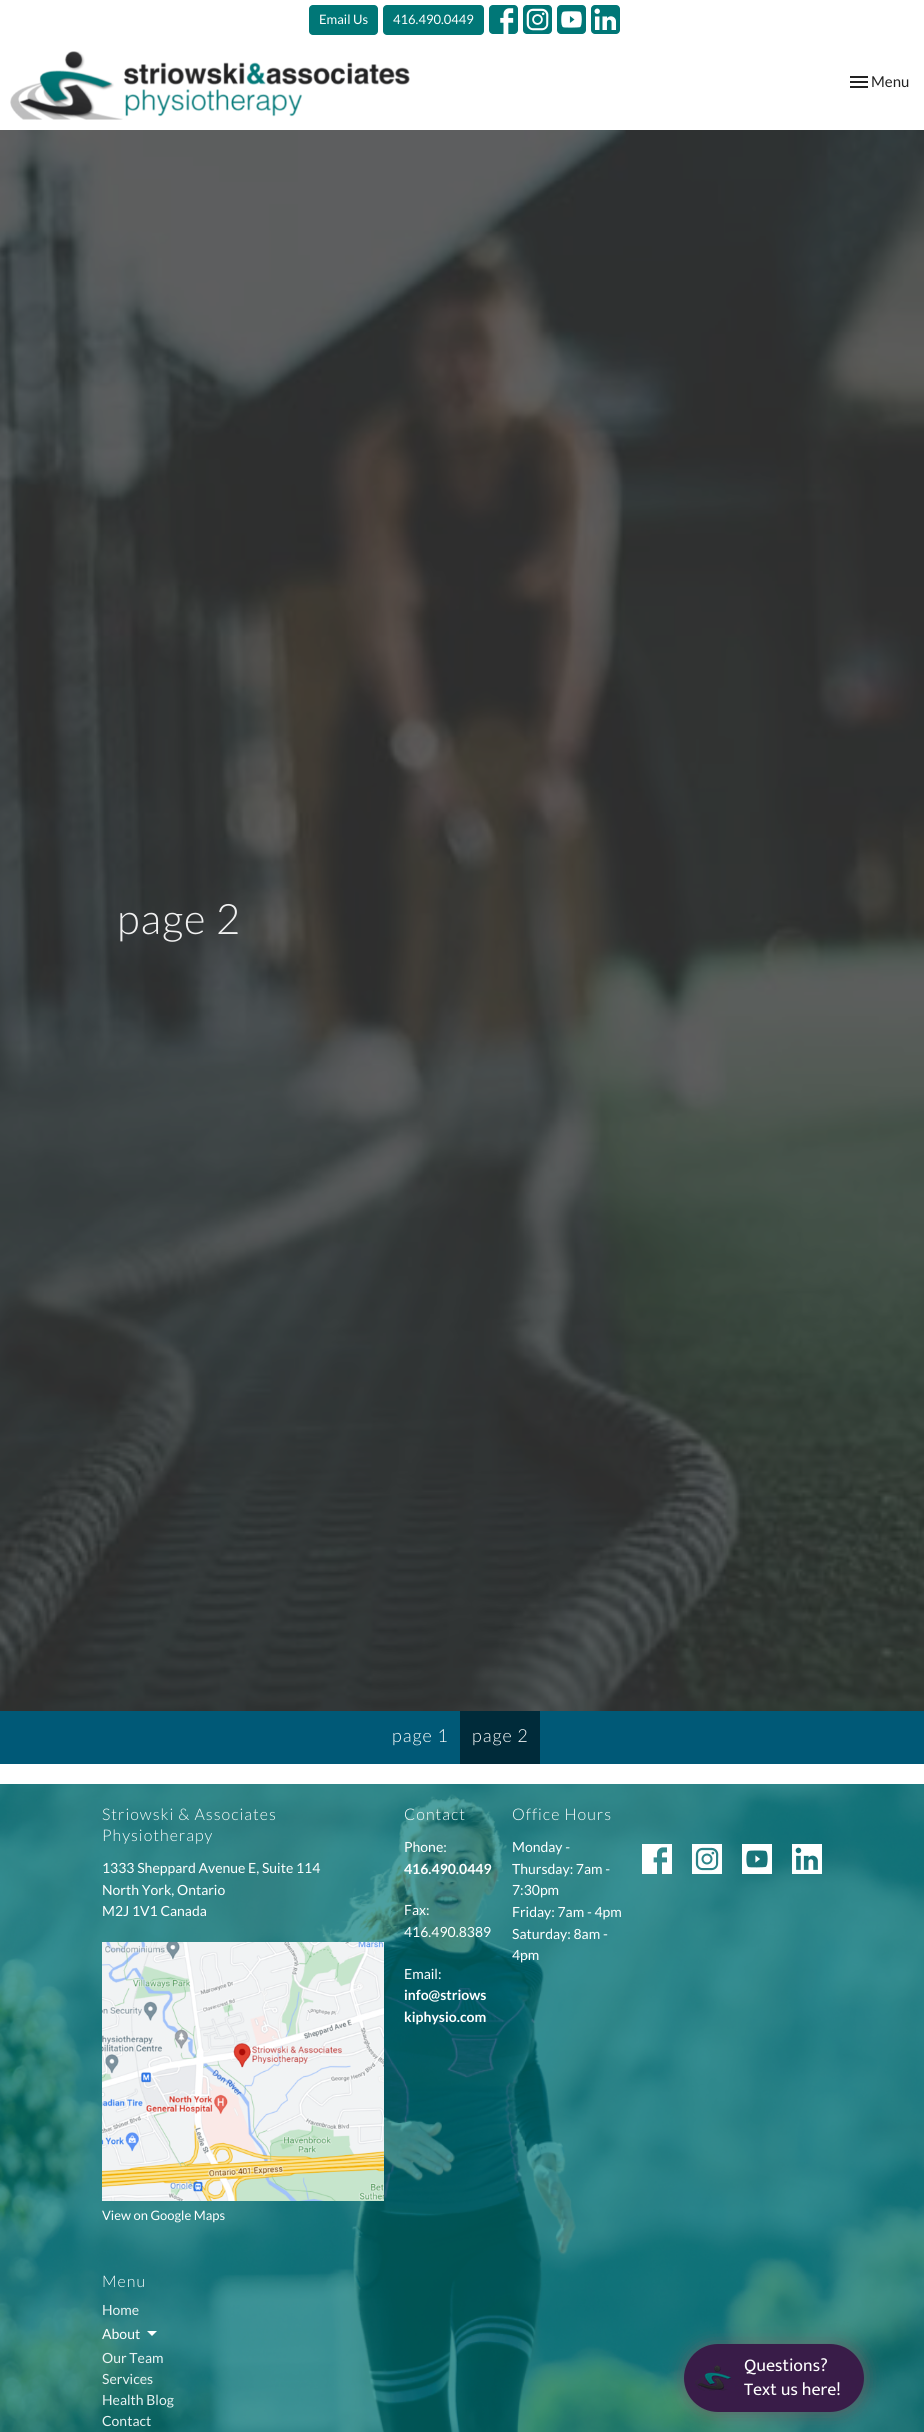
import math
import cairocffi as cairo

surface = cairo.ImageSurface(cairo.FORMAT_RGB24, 924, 2432)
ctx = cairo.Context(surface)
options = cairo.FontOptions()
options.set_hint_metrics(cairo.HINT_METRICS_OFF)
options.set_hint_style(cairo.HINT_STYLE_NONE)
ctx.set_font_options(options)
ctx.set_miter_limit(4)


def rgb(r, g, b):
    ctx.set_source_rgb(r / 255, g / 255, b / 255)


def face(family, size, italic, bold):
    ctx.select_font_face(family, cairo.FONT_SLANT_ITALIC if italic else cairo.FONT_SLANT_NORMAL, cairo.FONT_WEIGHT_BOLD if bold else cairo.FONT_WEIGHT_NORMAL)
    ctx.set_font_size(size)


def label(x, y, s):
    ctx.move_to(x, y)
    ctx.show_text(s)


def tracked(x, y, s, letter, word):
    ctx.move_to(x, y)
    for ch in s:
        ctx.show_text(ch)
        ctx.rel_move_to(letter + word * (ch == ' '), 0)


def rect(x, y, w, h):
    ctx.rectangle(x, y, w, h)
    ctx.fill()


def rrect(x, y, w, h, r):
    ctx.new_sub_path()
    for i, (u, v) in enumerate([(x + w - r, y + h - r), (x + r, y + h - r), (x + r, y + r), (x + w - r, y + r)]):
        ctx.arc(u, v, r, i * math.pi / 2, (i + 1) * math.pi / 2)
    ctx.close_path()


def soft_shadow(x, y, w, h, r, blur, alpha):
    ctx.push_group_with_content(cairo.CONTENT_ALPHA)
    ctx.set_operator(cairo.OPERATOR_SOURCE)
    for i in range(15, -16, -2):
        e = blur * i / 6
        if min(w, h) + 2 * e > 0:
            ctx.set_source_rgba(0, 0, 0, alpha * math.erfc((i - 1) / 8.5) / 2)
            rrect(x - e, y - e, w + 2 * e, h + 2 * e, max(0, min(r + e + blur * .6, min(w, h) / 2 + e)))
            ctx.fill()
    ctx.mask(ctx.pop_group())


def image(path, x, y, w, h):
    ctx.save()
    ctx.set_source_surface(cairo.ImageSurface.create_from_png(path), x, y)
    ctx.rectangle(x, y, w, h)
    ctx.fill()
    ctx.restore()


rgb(255, 255, 255)
ctx.paint()
rgb(0, 119, 119)
rrect(309, 5, 69, 30, 4)
ctx.fill()
face('Lato', 13, 0, 0)
rgb(255, 255, 255)
label(319, 24, 'Email Us')
rgb(0, 119, 119)
rrect(383, 5, 101, 30, 4)
ctx.fill()
rgb(255, 255, 255)
label(393, 24, '416.490.0449')
image('image0.png', 489, 5, 29, 29)
image('image1.png', 523, 5, 29, 29)
image('image2.png', 557, 5, 29, 29)
image('image3.png', 591, 5, 29, 29)
image('image4.png', 10, 51, 400, 69)
image('image5.png', 850, 76, 18, 12)
face('Lato', 15, 0, 0)
rgb(34, 34, 34)
label(871, 87, 'Menu')
image('image6.png', 0, 130, 924, 1581)
face('Lato Light', 42, 0, 0)
rgb(241, 241, 241)
tracked(117, 934, 'page 2', 1, 0)
rgb(0, 89, 119)
rect(0, 1711, 924, 53)
face('Lato Light', 18, 0, 0)
rgb(255, 255, 255)
tracked(392, 1742, 'page 1', 1, 0)
rgb(0, 43, 58)
rect(460, 1711, 80, 53)
rgb(255, 255, 255)
tracked(472, 1742, 'page 2', 1, 0)
image('image7.png', 0, 1784, 924, 648)
face('Lato Light', 16, 0, 0)
tracked(102, 1820, 'Striowski & Associates', 1, 0)
tracked(102, 1841, 'Physiotherapy', 1, 0)
face('Lato', 14, 0, 0)
label(102, 1873, '1333 Sheppard Avenue E, Suite 114')
label(102, 1895, 'North York, Ontario')
label(102, 1916, 'M2J 1V1 Canada')
image('image8.png', 102, 1942, 282, 259)
face('Lato', 13, 0, 0)
label(102, 2220, 'View on Google Maps')
face('Lato Light', 16, 0, 0)
tracked(404, 1820, 'Contact', 1, 0)
face('Lato', 14, 0, 0)
label(404, 1852, 'Phone:')
face('Lato', 14, 0, 1)
label(404, 1874, '416.490.0449')
face('Lato', 14, 0, 0)
label(404, 1915, 'Fax:')
label(404, 1937, '416.490.8389')
label(404, 1979, 'Email:')
face('Lato', 14, 0, 1)
label(404, 2000, 'info@striows')
label(404, 2022, 'kiphysio.com')
face('Lato Light', 16, 0, 0)
tracked(512, 1820, 'Office Hours', 1, 0)
face('Lato', 14, 0, 0)
label(512, 1852, 'Monday -')
label(512, 1874, 'Thursday: 7am -')
label(512, 1895, '7:30pm')
label(512, 1917, 'Friday: 7am - 4pm')
label(512, 1939, 'Saturday: 8am -')
label(512, 1960, '4pm')
image('image9.png', 642, 1844, 30, 30)
image('image10.png', 692, 1844, 30, 30)
image('image11.png', 742, 1844, 30, 30)
image('image12.png', 792, 1844, 30, 30)
face('Lato Light', 16, 0, 0)
tracked(102, 2287, 'Menu', 1, 0)
face('Lato', 14, 0, 0)
rgb(233, 242, 242)
label(102, 2315, 'Home')
rgb(255, 255, 255)
label(102, 2339, 'About')
ctx.new_path()
ctx.move_to(147, 2331)
ctx.line_to(152, 2336)
ctx.line_to(157, 2331)
ctx.close_path()
ctx.fill()
rgb(233, 242, 242)
label(102, 2363, 'Our Team')
label(102, 2384, 'Services')
label(102, 2405, 'Health Blog')
label(102, 2426, 'Contact')
rgb(100, 100, 100)
soft_shadow(685, 2345, 180, 68, 34, 10, 1)
rgb(57, 28, 72)
rrect(684, 2344, 180, 68, 34)
ctx.fill()
image('image13.png', 695, 2365, 36, 26)
face('Mukta', 18, 0, 0)
rgb(255, 255, 255)
label(744, 2371, 'Questions?')
label(744, 2395, 'Text us here!')
surface.write_to_png('render.png')
